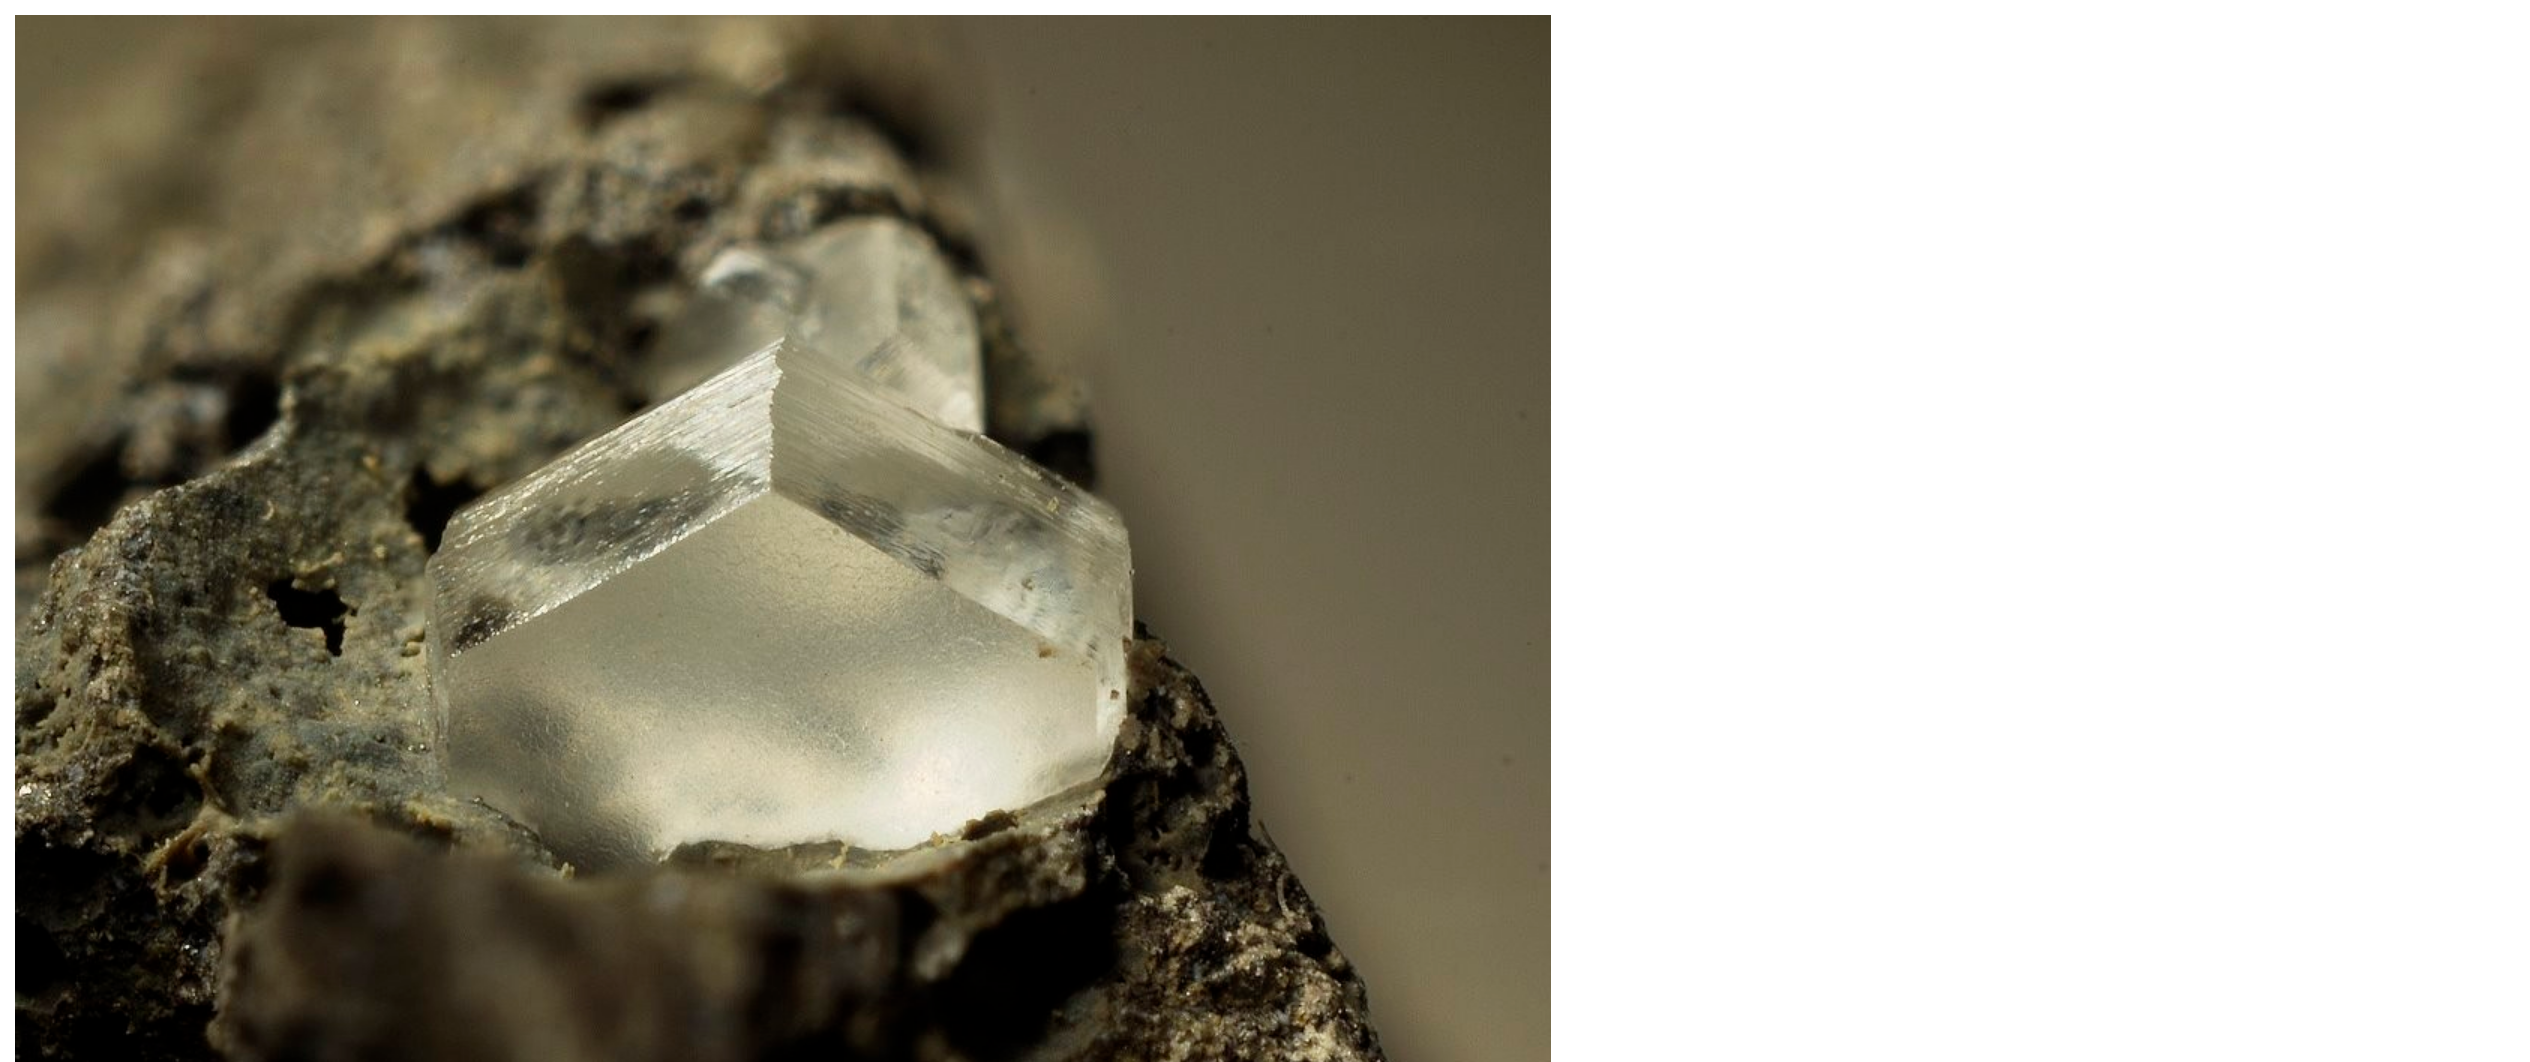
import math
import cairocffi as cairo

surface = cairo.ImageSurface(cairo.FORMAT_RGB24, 2530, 1062)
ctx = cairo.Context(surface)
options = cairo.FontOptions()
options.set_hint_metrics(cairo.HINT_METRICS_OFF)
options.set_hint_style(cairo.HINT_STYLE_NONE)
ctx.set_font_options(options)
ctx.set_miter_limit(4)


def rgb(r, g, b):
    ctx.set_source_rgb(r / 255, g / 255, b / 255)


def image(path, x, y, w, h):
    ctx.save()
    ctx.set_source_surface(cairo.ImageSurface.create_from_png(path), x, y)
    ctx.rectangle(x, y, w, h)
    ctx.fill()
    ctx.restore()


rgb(255, 255, 255)
ctx.paint()
image('image0.png', 15, 15, 1536, 1047)
surface.write_to_png('render.png')
